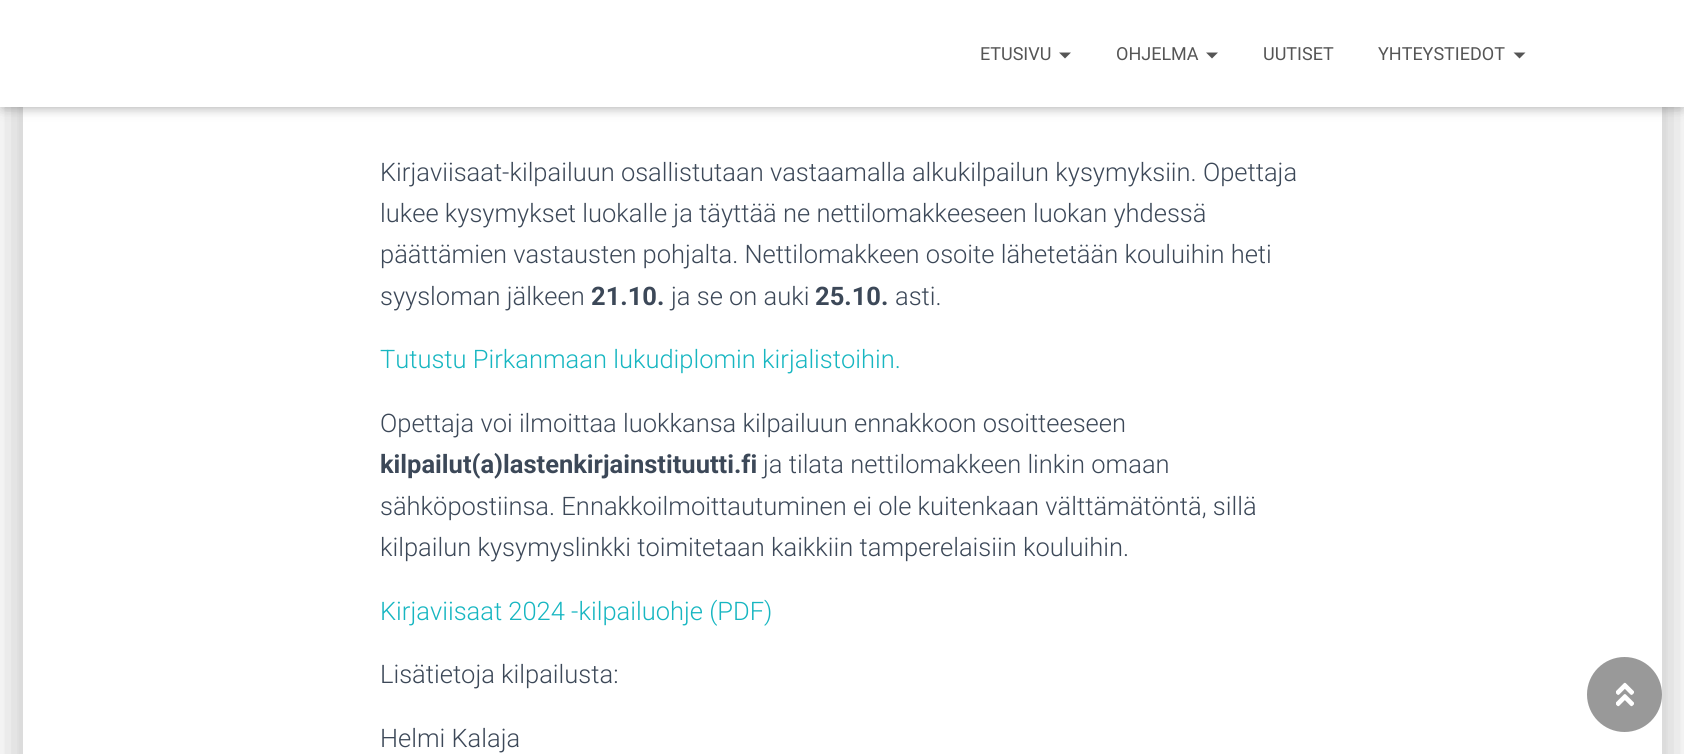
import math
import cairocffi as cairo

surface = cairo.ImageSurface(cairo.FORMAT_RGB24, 1684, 754)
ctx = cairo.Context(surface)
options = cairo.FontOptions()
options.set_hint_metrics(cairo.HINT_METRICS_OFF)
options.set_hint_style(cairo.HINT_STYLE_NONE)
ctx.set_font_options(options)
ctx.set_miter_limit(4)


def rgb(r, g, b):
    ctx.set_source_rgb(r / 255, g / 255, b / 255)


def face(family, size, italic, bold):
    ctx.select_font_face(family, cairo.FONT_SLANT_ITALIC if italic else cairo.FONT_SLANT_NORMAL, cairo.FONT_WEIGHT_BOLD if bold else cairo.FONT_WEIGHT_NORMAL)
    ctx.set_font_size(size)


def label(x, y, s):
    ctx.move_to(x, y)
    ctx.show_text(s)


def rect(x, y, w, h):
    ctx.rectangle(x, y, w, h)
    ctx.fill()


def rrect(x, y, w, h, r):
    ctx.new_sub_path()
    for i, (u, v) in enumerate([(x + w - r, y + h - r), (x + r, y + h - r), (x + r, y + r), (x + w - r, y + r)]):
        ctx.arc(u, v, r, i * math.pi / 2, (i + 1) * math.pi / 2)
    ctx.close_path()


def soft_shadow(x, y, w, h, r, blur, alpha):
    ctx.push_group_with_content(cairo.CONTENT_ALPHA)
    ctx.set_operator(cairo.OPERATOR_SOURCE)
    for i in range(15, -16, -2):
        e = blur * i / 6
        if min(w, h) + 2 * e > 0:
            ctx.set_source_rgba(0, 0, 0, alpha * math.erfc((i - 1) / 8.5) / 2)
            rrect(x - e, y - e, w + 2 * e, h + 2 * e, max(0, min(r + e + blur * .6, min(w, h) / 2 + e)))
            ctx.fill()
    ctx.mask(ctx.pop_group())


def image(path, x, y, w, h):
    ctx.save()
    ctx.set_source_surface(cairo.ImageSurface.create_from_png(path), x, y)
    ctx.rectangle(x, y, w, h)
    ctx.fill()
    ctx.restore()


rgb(255, 255, 255)
ctx.paint()
rgb(0, 0, 0)
soft_shadow(3, 9, 1679, 101, 0, 4, 0.1)
soft_shadow(0, 2, 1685, 106, 0, 7.5, 0.12)
soft_shadow(9, 11, 1667, 88, 0, 7.5, 0.42)
ctx.save()
ctx.set_fill_rule(cairo.FILL_RULE_EVEN_ODD)
ctx.new_path()
ctx.move_to(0, 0)
ctx.line_to(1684, 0)
ctx.line_to(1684, 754)
ctx.line_to(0, 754)
ctx.close_path()
ctx.move_to(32, -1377)
ctx.line_to(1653, -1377)
ctx.curve_to(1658, -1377, 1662, -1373, 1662, -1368)
ctx.line_to(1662, 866)
ctx.line_to(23, 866)
ctx.line_to(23, -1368)
ctx.curve_to(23, -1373, 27, -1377, 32, -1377)
ctx.close_path()
ctx.clip()
soft_shadow(15, -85, 1655, 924, 17, 22.5, 0.12)
soft_shadow(20, -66, 1645, 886, 12, 18, 0.14)
ctx.restore()
rgb(255, 255, 255)
rect(0, 0, 1684, 107)
face('Roboto', 18, 0, 0)
rgb(85, 85, 85)
label(980, 60, 'ETUSIVU')
ctx.new_path()
ctx.move_to(1059, 52.5)
ctx.line_to(1071, 52.5)
ctx.line_to(1065, 58.5)
ctx.close_path()
ctx.fill()
label(1116, 60, 'OHJELMA')
ctx.new_path()
ctx.move_to(1206, 52.5)
ctx.line_to(1218, 52.5)
ctx.line_to(1212, 58.5)
ctx.close_path()
ctx.fill()
label(1263, 60, 'UUTISET')
label(1378, 60, 'YHTEYSTIEDOT')
ctx.new_path()
ctx.move_to(1513.5, 52.5)
ctx.line_to(1525.5, 52.5)
ctx.line_to(1519.5, 58.5)
ctx.close_path()
ctx.fill()
face('Roboto Light', 25.5, 0, 0)
rgb(60, 72, 88)
label(380, 181, 'Kirjaviisaat-kilpailuun osallistutaan vastaamalla alkukilpailun kysymyksiin. Opettaja')
label(380, 222, 'lukee kysymykset luokalle ja täyttää ne nettilomakkeeseen luokan yhdessä')
label(380, 263, 'päättämien vastausten pohjalta. Nettilomakkeen osoite lähetetään kouluihin heti')
label(380, 305, 'syysloman jälkeen')
face('Roboto', 25.5, 0, 1)
label(591, 305, '21.10.')
face('Roboto Light', 25.5, 0, 0)
label(671, 305, 'ja se on auki')
face('Roboto', 25.5, 0, 1)
label(815, 305, '25.10.')
face('Roboto Light', 25.5, 0, 0)
label(895, 305, 'asti.')
rgb(23, 182, 193)
label(380, 368, 'Tutustu Pirkanmaan lukudiplomin kirjalistoihin.')
rgb(60, 72, 88)
label(380, 432, 'Opettaja voi ilmoittaa luokkansa kilpailuun ennakkoon osoitteeseen')
face('Roboto', 25.5, 0, 1)
label(380, 473, 'kilpailut(a)lastenkirjainstituutti.fi')
face('Roboto Light', 25.5, 0, 0)
label(763, 473, 'ja tilata nettilomakkeen linkin omaan')
label(380, 515, 'sähköpostiinsa. Ennakkoilmoittautuminen ei ole kuitenkaan välttämätöntä, sillä')
label(380, 556, 'kilpailun kysymyslinkki toimitetaan kaikkiin tamperelaisiin kouluihin.')
rgb(23, 182, 193)
label(380, 620, 'Kirjaviisaat 2024 -kilpailuohje (PDF)')
rgb(60, 72, 88)
label(380, 683, 'Lisätietoja kilpailusta:')
label(380, 747, 'Helmi Kalaja')
rgb(153, 153, 153)
ctx.new_path()
ctx.arc(1624.5, 694.5, 37.5, 0, 2 * math.pi)
ctx.fill()
image('image0.png', 1616, 682, 18, 25)
surface.write_to_png('render.png')
